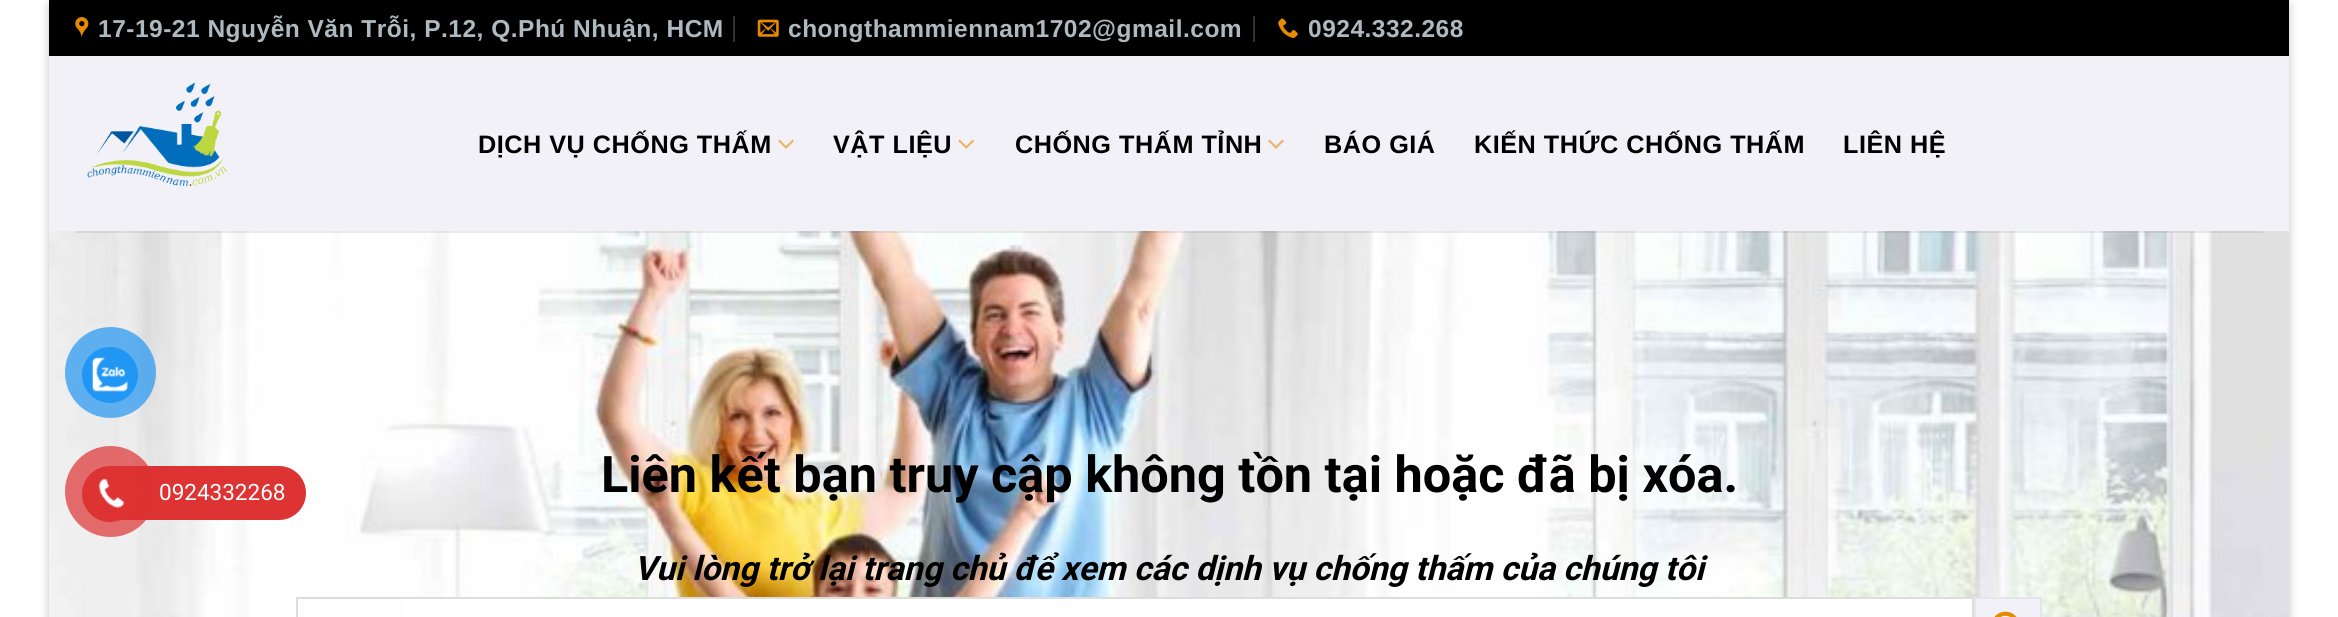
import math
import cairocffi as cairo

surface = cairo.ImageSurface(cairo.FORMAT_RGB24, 2338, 617)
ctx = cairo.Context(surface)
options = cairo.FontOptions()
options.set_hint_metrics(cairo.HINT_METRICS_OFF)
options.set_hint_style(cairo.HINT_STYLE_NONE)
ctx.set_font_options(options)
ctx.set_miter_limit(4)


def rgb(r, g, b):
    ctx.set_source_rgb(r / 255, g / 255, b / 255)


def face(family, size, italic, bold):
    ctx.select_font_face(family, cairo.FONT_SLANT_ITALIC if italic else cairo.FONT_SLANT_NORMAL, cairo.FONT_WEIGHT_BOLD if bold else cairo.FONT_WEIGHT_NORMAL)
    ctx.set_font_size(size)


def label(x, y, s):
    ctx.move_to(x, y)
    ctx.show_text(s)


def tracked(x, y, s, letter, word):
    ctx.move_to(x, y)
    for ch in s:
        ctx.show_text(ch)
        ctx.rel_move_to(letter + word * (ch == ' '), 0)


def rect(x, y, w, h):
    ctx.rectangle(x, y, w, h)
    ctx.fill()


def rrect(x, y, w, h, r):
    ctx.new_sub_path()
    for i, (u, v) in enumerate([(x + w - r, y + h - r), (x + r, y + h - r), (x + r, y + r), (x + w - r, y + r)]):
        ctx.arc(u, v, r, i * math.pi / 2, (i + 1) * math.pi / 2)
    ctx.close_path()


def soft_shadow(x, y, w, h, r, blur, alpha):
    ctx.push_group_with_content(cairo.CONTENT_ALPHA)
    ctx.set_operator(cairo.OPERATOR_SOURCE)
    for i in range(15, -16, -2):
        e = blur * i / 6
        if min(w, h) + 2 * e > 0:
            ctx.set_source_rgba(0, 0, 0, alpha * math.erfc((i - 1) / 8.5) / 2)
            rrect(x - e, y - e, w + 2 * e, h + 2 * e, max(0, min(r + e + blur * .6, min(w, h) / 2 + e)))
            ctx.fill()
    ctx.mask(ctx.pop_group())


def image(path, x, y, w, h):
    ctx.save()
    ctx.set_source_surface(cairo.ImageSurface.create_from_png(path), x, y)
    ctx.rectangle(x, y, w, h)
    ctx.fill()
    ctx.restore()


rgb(255, 255, 255)
ctx.paint()
rgb(0, 0, 0)
soft_shadow(49, 5, 2240, 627, 0, 5, 0.23)
rgb(0, 0, 0)
rect(49, 0, 2240, 56)
image('image0.png', 75, 17, 14, 21)
face('Liberation Sans', 24.5, 0, 1)
rgb(174, 185, 192)
tracked(98, 37, '17-19-21 Nguyễn Văn Trỗi, P.12, Q.Phú Nhuận, HCM', 0.5, 0)
rgb(51, 51, 51)
rect(733, 16, 2, 26)
image('image1.png', 757, 19, 22, 18)
rgb(174, 185, 192)
tracked(788, 37, 'chongthammiennam1702@gmail.com', 0.5, 0)
rgb(51, 51, 51)
rect(1253, 16, 2, 26)
image('image2.png', 1278, 18, 20, 21)
rgb(174, 185, 192)
tracked(1308, 37, '0924.332.268', 0.5, 0)
rgb(242, 241, 248)
rect(49, 56, 2240, 175)
image('image3.png', 87, 82, 140, 105)
face('Liberation Sans', 25.25, 0, 1)
rgb(0, 0, 0)
tracked(478, 153, 'DỊCH VỤ CHỐNG THẤM', 0.5, 0)
image('image4.png', 778, 139, 16, 10)
tracked(833, 153, 'VẬT LIỆU', 0.5, 0)
image('image5.png', 958, 139, 16, 10)
tracked(1015, 153, 'CHỐNG THẤM TỈNH', 0.5, 0)
image('image4.png', 1268, 139, 16, 10)
tracked(1324, 153, 'BÁO GIÁ', 0.5, 0)
tracked(1474, 153, 'KIẾN THỨC CHỐNG THẤM', 0.5, 0)
tracked(1843, 153, 'LIÊN HỆ', 0.5, 0)
image('image6.png', 49, 231, 2240, 386)
ctx.set_source_rgba(0.267, 0.267, 0.267, 0.1)
rect(75, 231, 2188, 2)
face('Roboto', 50.4, 0, 1)
rgb(0, 0, 0)
label(601, 492, 'Liên kết bạn truy cập không tồn tại hoặc đã bị xóa.')
face('Roboto', 33.6, 1, 1)
label(634, 580, 'Vui lòng trở lại trang chủ để xem các dịnh vụ chống thấm của chúng tôi')
rgb(255, 255, 255)
rect(402, 599, 1570, 18)
ctx.rectangle(297, 598, 1676, 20)
rgb(221, 221, 221)
ctx.stroke()
rgb(242, 241, 248)
ctx.rectangle(1975, 598, 66, 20)
ctx.fill_preserve()
rgb(230, 229, 236)
ctx.stroke()
image('image7.png', 1994, 611, 23, 6)
ctx.set_source_rgba(0.129, 0.588, 0.953, 0.7)
ctx.arc(110.5, 372.5, 45.5, 0, 2 * math.pi)
ctx.fill()
rgb(33, 150, 243)
ctx.arc(110, 375, 28, 0, 2 * math.pi)
ctx.fill()
image('image8.png', 92, 357, 36, 35)
rgb(221, 51, 51)
rrect(89, 466, 217, 54, 27)
ctx.fill()
ctx.set_source_rgba(0.867, 0.2, 0.2, 0.7)
ctx.arc(110.5, 491.5, 45.5, 0, 2 * math.pi)
ctx.fill()
rgb(221, 51, 51)
ctx.arc(110, 494, 28, 0, 2 * math.pi)
ctx.fill()
image('image9.png', 98, 478, 27, 31)
face('Roboto', 22.5, 0, 0)
rgb(255, 255, 255)
label(159, 500, '0924332268')
surface.write_to_png('render.png')
